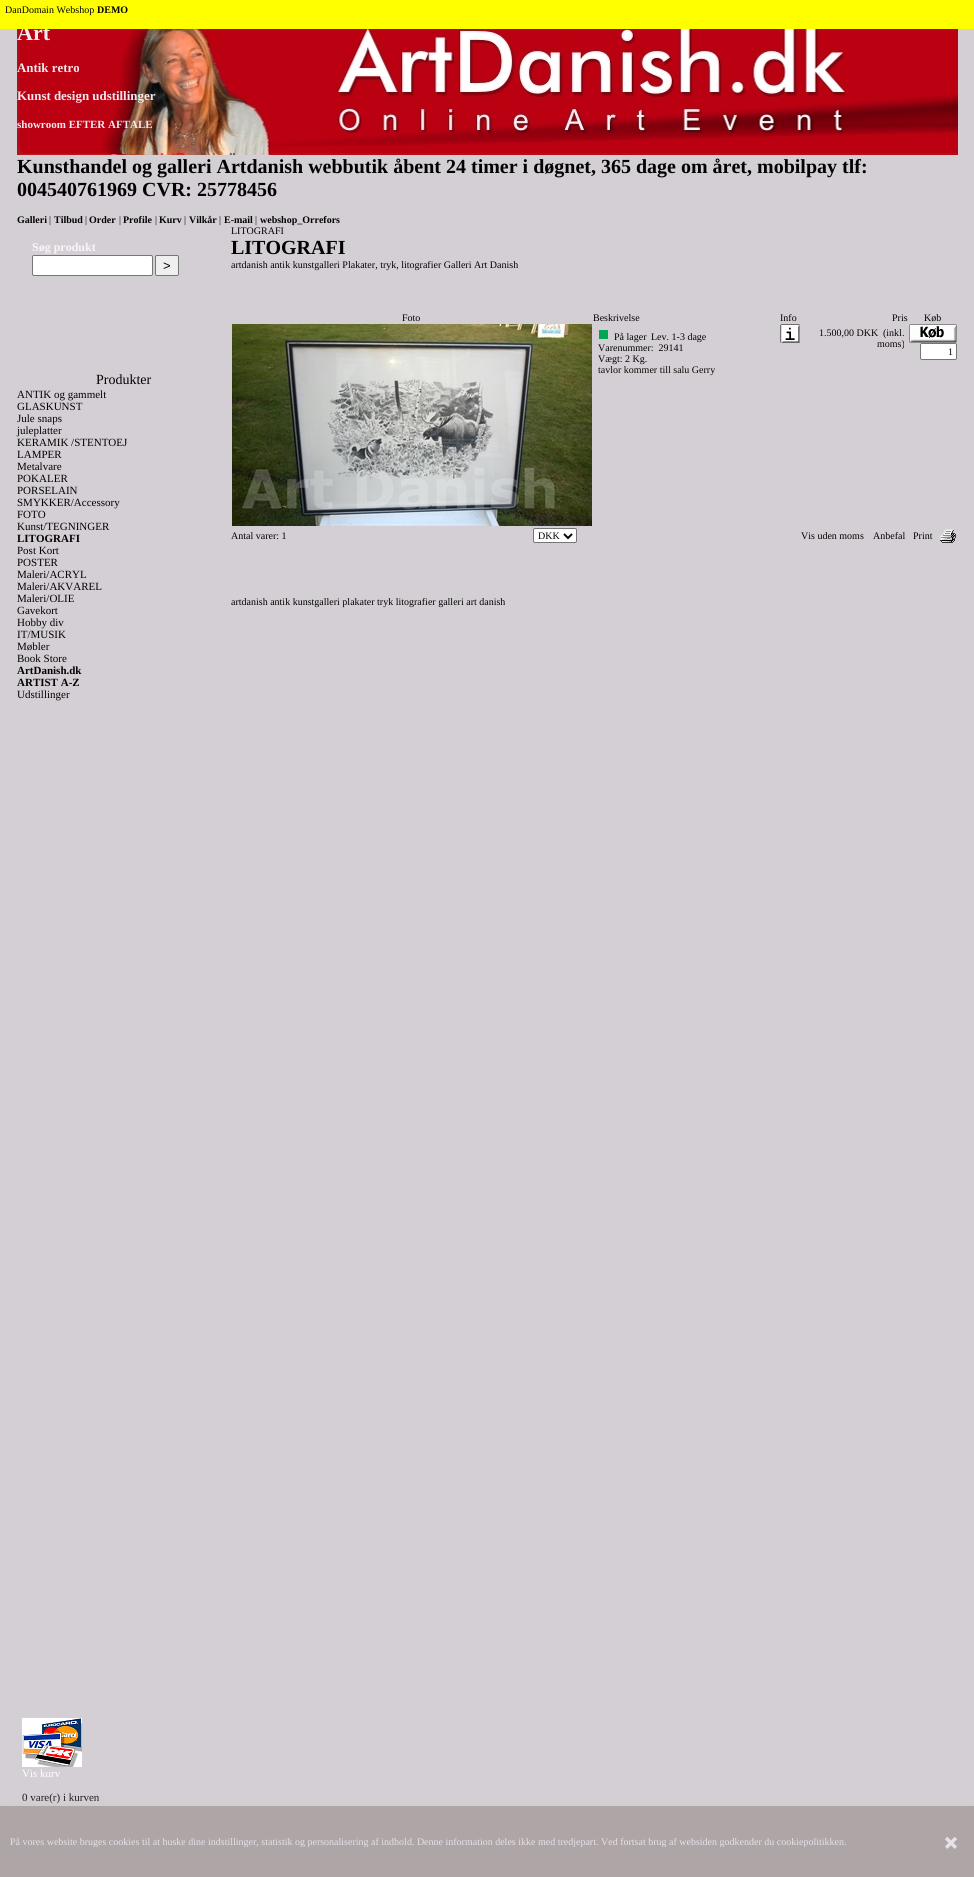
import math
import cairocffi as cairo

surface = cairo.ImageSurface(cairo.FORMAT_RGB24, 974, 1877)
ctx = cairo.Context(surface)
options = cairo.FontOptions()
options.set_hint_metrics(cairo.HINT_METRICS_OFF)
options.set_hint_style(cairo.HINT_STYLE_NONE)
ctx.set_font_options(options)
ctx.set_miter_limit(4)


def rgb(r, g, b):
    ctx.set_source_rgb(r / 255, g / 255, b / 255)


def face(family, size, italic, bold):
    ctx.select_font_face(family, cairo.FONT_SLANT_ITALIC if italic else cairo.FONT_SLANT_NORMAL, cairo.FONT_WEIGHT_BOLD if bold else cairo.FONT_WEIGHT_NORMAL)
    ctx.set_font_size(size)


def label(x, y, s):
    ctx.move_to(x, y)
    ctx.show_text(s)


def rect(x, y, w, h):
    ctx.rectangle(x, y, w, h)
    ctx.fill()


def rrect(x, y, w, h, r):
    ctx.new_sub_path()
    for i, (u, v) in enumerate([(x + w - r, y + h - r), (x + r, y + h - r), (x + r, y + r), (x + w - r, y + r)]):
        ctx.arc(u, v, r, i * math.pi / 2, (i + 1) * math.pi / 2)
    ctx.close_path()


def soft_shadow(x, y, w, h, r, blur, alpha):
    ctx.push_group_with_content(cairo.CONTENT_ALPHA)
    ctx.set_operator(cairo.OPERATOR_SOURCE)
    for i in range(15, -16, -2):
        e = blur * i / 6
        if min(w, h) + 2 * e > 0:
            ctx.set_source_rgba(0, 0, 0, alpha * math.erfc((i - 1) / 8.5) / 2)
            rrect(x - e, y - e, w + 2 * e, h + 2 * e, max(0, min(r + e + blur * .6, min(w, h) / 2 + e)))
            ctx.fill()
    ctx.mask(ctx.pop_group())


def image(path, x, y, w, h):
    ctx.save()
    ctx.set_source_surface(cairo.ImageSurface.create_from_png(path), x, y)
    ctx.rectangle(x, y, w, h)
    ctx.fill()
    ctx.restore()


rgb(212, 207, 212)
ctx.paint()
image('image0.png', 17, 29, 941, 126)
face('Liberation Serif', 22, 0, 1)
rgb(240, 233, 240)
label(17, 40, 'Art')
rgb(255, 255, 0)
rect(0, 0, 974, 29)
face('Liberation Serif', 10, 0, 0)
rgb(3, 2, 3)
label(5, 13, 'DanDomain Webshop')
face('Liberation Serif', 10, 0, 1)
label(97, 13, 'DEMO')
face('Liberation Serif', 12.9, 0, 1)
rgb(240, 233, 240)
label(17, 72, 'Antik retro')
label(17, 100, 'Kunst design udstillinger')
face('Liberation Serif', 11, 0, 1)
label(17, 128, 'showroom EFTER AFTALE')
face('Liberation Serif', 20, 0, 1)
rgb(3, 2, 3)
label(17, 173, 'Kunsthandel og galleri Artdanish webbutik åbent 24 timer i døgnet, 365 dage om året, mobilpay tlf:')
label(17, 196, '004540761969 CVR: 25778456')
face('Liberation Serif', 10, 0, 1)
label(17, 223, 'Galleri')
face('Liberation Serif', 10, 0, 0)
label(49, 223, '|')
face('Liberation Serif', 10, 0, 1)
label(54, 223, 'Tilbud')
face('Liberation Serif', 10, 0, 0)
label(85, 223, '|')
face('Liberation Serif', 10, 0, 1)
label(89, 223, 'Order')
face('Liberation Serif', 10, 0, 0)
label(119, 223, '|')
face('Liberation Serif', 10, 0, 1)
label(123, 223, 'Profile')
face('Liberation Serif', 10, 0, 0)
label(155, 223, '|')
face('Liberation Serif', 10, 0, 1)
label(159, 223, 'Kurv')
face('Liberation Serif', 10, 0, 0)
label(184, 223, '|')
face('Liberation Serif', 10, 0, 1)
label(189, 223, 'Vilkår')
face('Liberation Serif', 10, 0, 0)
label(219, 223, '|')
face('Liberation Serif', 10, 0, 1)
label(224, 223, 'E-mail')
face('Liberation Serif', 10, 0, 0)
label(255, 223, '|')
face('Liberation Serif', 10, 0, 1)
label(260, 223, 'webshop_Orrefors')
face('Liberation Serif', 12, 0, 1)
rgb(247, 245, 247)
label(32, 251, 'Søg produkt')
rgb(255, 255, 255)
rrect(32.5, 255.5, 120, 20, 1.5)
ctx.fill_preserve()
rgb(118, 118, 118)
ctx.set_line_width(1)
ctx.stroke()
rgb(239, 239, 239)
rrect(155.5, 255.5, 23, 20, 1.5)
ctx.fill_preserve()
rgb(118, 118, 118)
ctx.stroke()
face('Liberation Sans', 13, 0, 0)
rgb(3, 2, 3)
label(163, 270, '>')
face('Liberation Serif', 14, 0, 0)
label(96, 384, 'Produkter')
face('Liberation Serif', 11, 0, 0)
label(17, 398, 'ANTIK og gammelt')
label(17, 410, 'GLASKUNST')
label(17, 422, 'Jule snaps')
label(17, 434, 'juleplatter')
label(17, 446, 'KERAMIK /STENTOEJ')
label(17, 458, 'LAMPER')
label(17, 470, 'Metalvare')
label(17, 482, 'POKALER')
label(17, 494, 'PORSELAIN')
label(17, 506, 'SMYKKER/Accessory')
label(17, 518, 'FOTO')
label(17, 530, 'Kunst/TEGNINGER')
face('Liberation Serif', 11, 0, 1)
label(17, 542, 'LITOGRAFI')
face('Liberation Serif', 11, 0, 0)
label(17, 554, 'Post Kort')
label(17, 566, 'POSTER')
label(17, 578, 'Maleri/ACRYL')
label(17, 590, 'Maleri/AKVAREL')
label(17, 602, 'Maleri/OLIE')
label(17, 614, 'Gavekort')
label(17, 626, 'Hobby div')
label(17, 638, 'IT/MUSIK')
label(17, 650, 'Møbler')
label(17, 662, 'Book Store')
face('Liberation Serif', 11, 0, 1)
label(17, 674, 'ArtDanish.dk')
label(17, 686, 'ARTIST A-Z')
face('Liberation Serif', 11, 0, 0)
label(17, 698, 'Udstillinger')
image('image1.png', 22, 1718, 60, 49)
rgb(255, 255, 255)
label(22, 1777, 'Vis kurv')
rgb(20, 19, 20)
label(22, 1801, '0 vare(r) i kurven')
face('Liberation Serif', 10, 0, 0)
rgb(3, 2, 3)
label(231, 234, 'LITOGRAFI')
face('Liberation Serif', 20, 0, 1)
label(231, 254, 'LITOGRAFI')
face('Liberation Serif', 10, 0, 0)
label(231, 268, 'artdanish antik kunstgalleri Plakater, tryk, litografier Galleri Art Danish')
label(402, 321, 'Foto')
label(593, 321, 'Beskrivelse')
label(780, 321, 'Info')
label(892, 321, 'Pris')
label(924, 321, 'Køb')
image('image2.png', 232, 324, 360, 202)
rgb(0, 166, 81)
rect(599, 330, 9, 9)
rgb(3, 2, 3)
label(614, 340, 'På lager')
label(651, 340, 'Lev. 1-3 dage')
label(598, 351, 'Varenummer:  29141')
label(598, 362, 'Vægt: 2 Kg.')
rgb(8, 8, 6)
label(598, 373, 'tavlor kommer till salu Gerry')
image('image3.png', 780, 324, 20, 19)
label(819, 336, '1.500,00 DKK')
label(883, 336, '(inkl.')
label(877, 347, 'moms)')
image('image4.png', 909, 324, 48, 19)
rgb(255, 255, 255)
rrect(920.5, 343.5, 36, 16, 1.5)
ctx.fill_preserve()
rgb(118, 118, 118)
ctx.stroke()
rgb(3, 2, 3)
label(948, 355, '1')
label(231, 539, 'Antal varer: 1')
rgb(255, 255, 255)
rrect(533.5, 528.5, 43, 14, 1.5)
ctx.fill_preserve()
rgb(118, 118, 118)
ctx.stroke()
ctx.new_path()
ctx.move_to(564, 534)
ctx.line_to(568, 538)
ctx.line_to(572, 534)
rgb(8, 1, 8)
ctx.set_line_width(2)
ctx.stroke()
rgb(3, 2, 3)
label(538, 539, 'DKK')
label(801, 539, 'Vis uden moms')
label(873, 539, 'Anbefal')
label(913, 539, 'Print')
image('image5.png', 940, 529, 16, 14)
label(231, 605, 'artdanish antik kunstgalleri plakater tryk litografier galleri art danish')
rgb(204, 204, 204)
soft_shadow(0, 1806, 974, 71, 0, 5, 1)
rgb(173, 165, 166)
rect(0, 1806, 974, 71)
ctx.save()
ctx.rectangle(0, 1836, 974, 11)
ctx.clip()
rgb(232, 225, 232)
label(10, 1845, 'På vores website bruges cookies til at huske dine indstillinger, statistik og personalisering af indhold. Denne information deles ikke med tredjepart. Ved fortsat brug af websiden godkender du cookiepolitikken.')
ctx.restore()
image('image6.png', 945, 1836, 12, 13)
surface.write_to_png('render.png')
